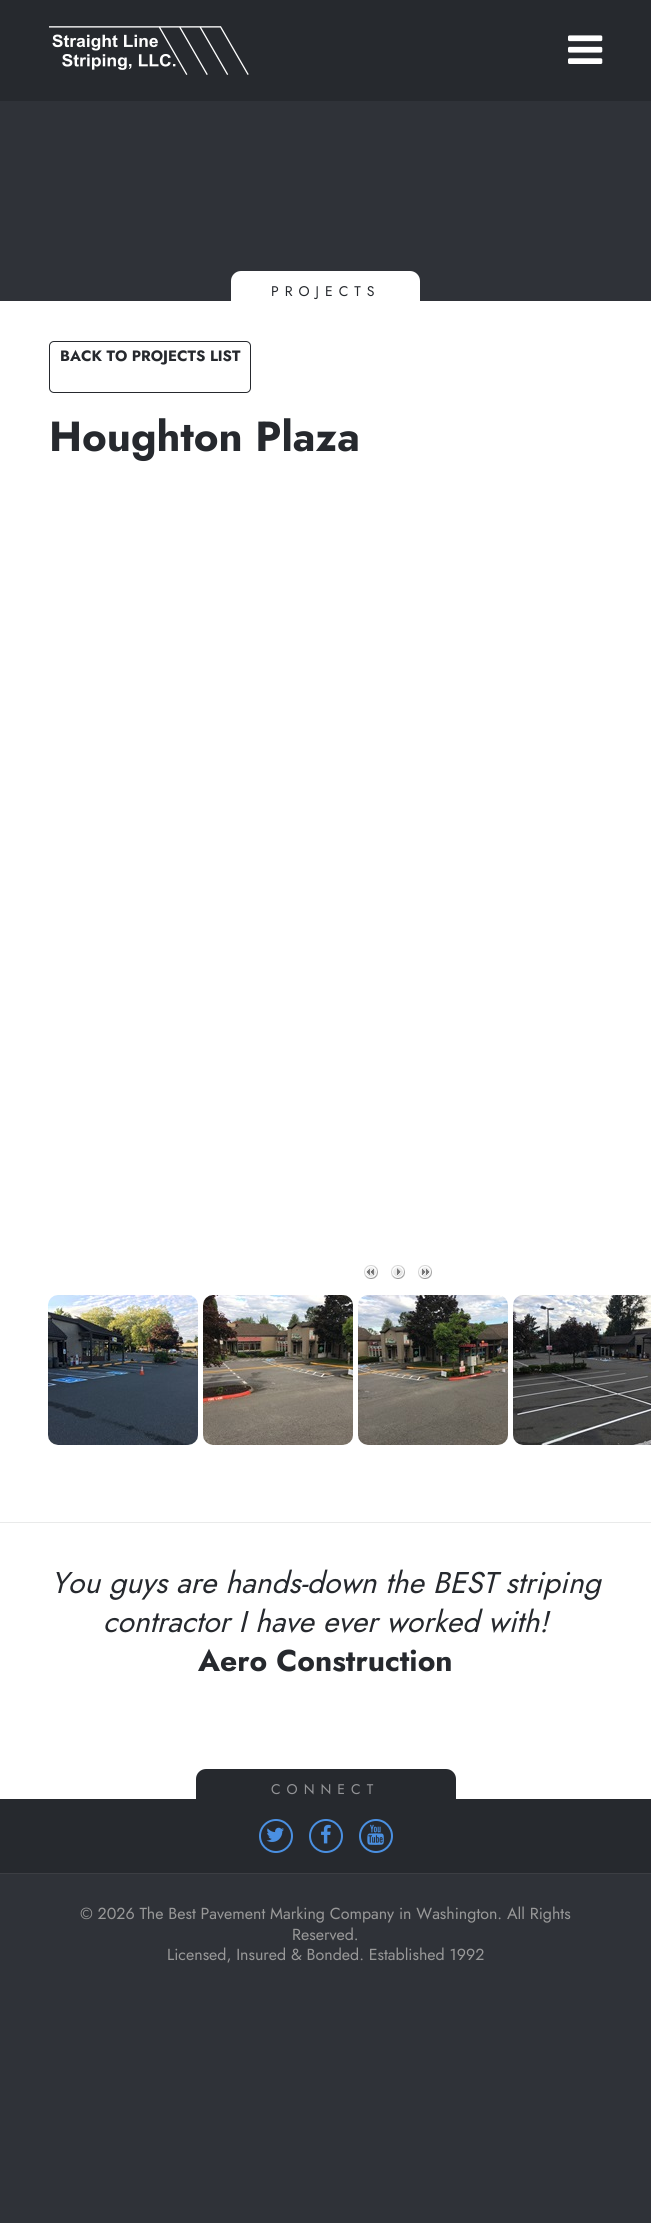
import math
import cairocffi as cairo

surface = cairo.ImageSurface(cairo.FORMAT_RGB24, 651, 2223)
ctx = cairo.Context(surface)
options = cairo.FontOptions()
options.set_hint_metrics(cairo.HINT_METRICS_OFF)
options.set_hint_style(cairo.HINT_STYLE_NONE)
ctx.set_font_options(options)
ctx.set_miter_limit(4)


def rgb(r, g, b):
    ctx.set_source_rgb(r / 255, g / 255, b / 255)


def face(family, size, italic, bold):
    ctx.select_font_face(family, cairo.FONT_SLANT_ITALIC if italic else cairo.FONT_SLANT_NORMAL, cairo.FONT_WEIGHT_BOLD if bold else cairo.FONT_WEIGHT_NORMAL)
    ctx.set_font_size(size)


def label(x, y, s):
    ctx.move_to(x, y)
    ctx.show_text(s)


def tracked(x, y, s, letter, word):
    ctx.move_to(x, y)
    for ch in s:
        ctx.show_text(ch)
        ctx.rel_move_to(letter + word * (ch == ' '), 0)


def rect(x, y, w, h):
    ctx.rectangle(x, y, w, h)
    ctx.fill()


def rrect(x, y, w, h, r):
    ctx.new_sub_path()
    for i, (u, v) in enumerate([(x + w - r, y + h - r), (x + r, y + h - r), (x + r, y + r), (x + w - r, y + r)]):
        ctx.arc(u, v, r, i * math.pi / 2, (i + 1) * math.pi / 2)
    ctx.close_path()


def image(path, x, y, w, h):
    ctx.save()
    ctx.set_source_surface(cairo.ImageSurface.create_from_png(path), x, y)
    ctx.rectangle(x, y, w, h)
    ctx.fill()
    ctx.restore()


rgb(47, 50, 56)
ctx.paint()
rgb(38, 41, 46)
rect(0, 0, 651, 101)
image('image0.png', 49, 26, 200, 49)
image('image1.png', 568, 35, 35, 29)
rgb(255, 255, 255)
rect(0, 301, 651, 1221)
rrect(231, 271, 189, 40, 10)
ctx.fill()
face('Jost', 14, 0, 0)
rgb(38, 41, 46)
tracked(271, 296, 'PROJECTS', 6, 0)
rgb(233, 234, 234)
rect(0, 1522, 651, 1)
rrect(49.5, 341.5, 201, 51, 4.5)
rgb(38, 41, 46)
ctx.set_line_width(1)
ctx.stroke()
face('Jost', 15, 0, 1)
label(60, 361, 'BACK TO PROJECTS LIST')
face('Jost', 42, 0, 1)
label(49, 451, 'Houghton Plaza')
image('image2.png', 364, 1265, 14, 14)
image('image3.png', 391, 1265, 14, 14)
image('image4.png', 418, 1265, 14, 14)
image('image5.png', 48, 1295, 150, 150)
image('image6.png', 203, 1295, 150, 150)
image('image7.png', 358, 1295, 150, 150)
image('image8.png', 513, 1295, 138, 150)
rgb(255, 255, 255)
rect(0, 1523, 651, 276)
face('Jost', 30, 1, 0)
rgb(38, 41, 46)
label(51, 1593, 'You guys are hands-down the BEST striping')
label(103, 1632, 'contractor I have ever worked with!')
face('Jost', 30, 0, 1)
label(198, 1671, 'Aero Construction')
rect(0, 1799, 651, 74)
rgb(60, 62, 67)
rect(0, 1873, 651, 1)
rgb(38, 41, 46)
rrect(196, 1769, 260, 40, 10)
ctx.fill()
face('Jost', 14, 0, 0)
rgb(147, 148, 151)
tracked(271, 1794, 'CONNECT', 6, 0)
ctx.new_path()
ctx.arc(276, 1836, 16, 0, 2 * math.pi)
rgb(74, 144, 226)
ctx.set_line_width(2)
ctx.stroke()
image('image9.png', 266, 1827, 18, 15)
ctx.arc(326, 1836, 16, 0, 2 * math.pi)
ctx.stroke()
image('image10.png', 321, 1824, 10, 20)
ctx.arc(376, 1836, 16, 0, 2 * math.pi)
ctx.stroke()
image('image11.png', 367, 1824, 17, 21)
face('Jost', 16, 0, 0)
rgb(153, 153, 153)
label(80, 1919, '© 2026 The Best Pavement Marking Company in Washington. All Rights')
label(292, 1940, 'Reserved.')
label(167, 1960, 'Licensed, Insured & Bonded. Established 1992')
surface.write_to_png('render.png')
